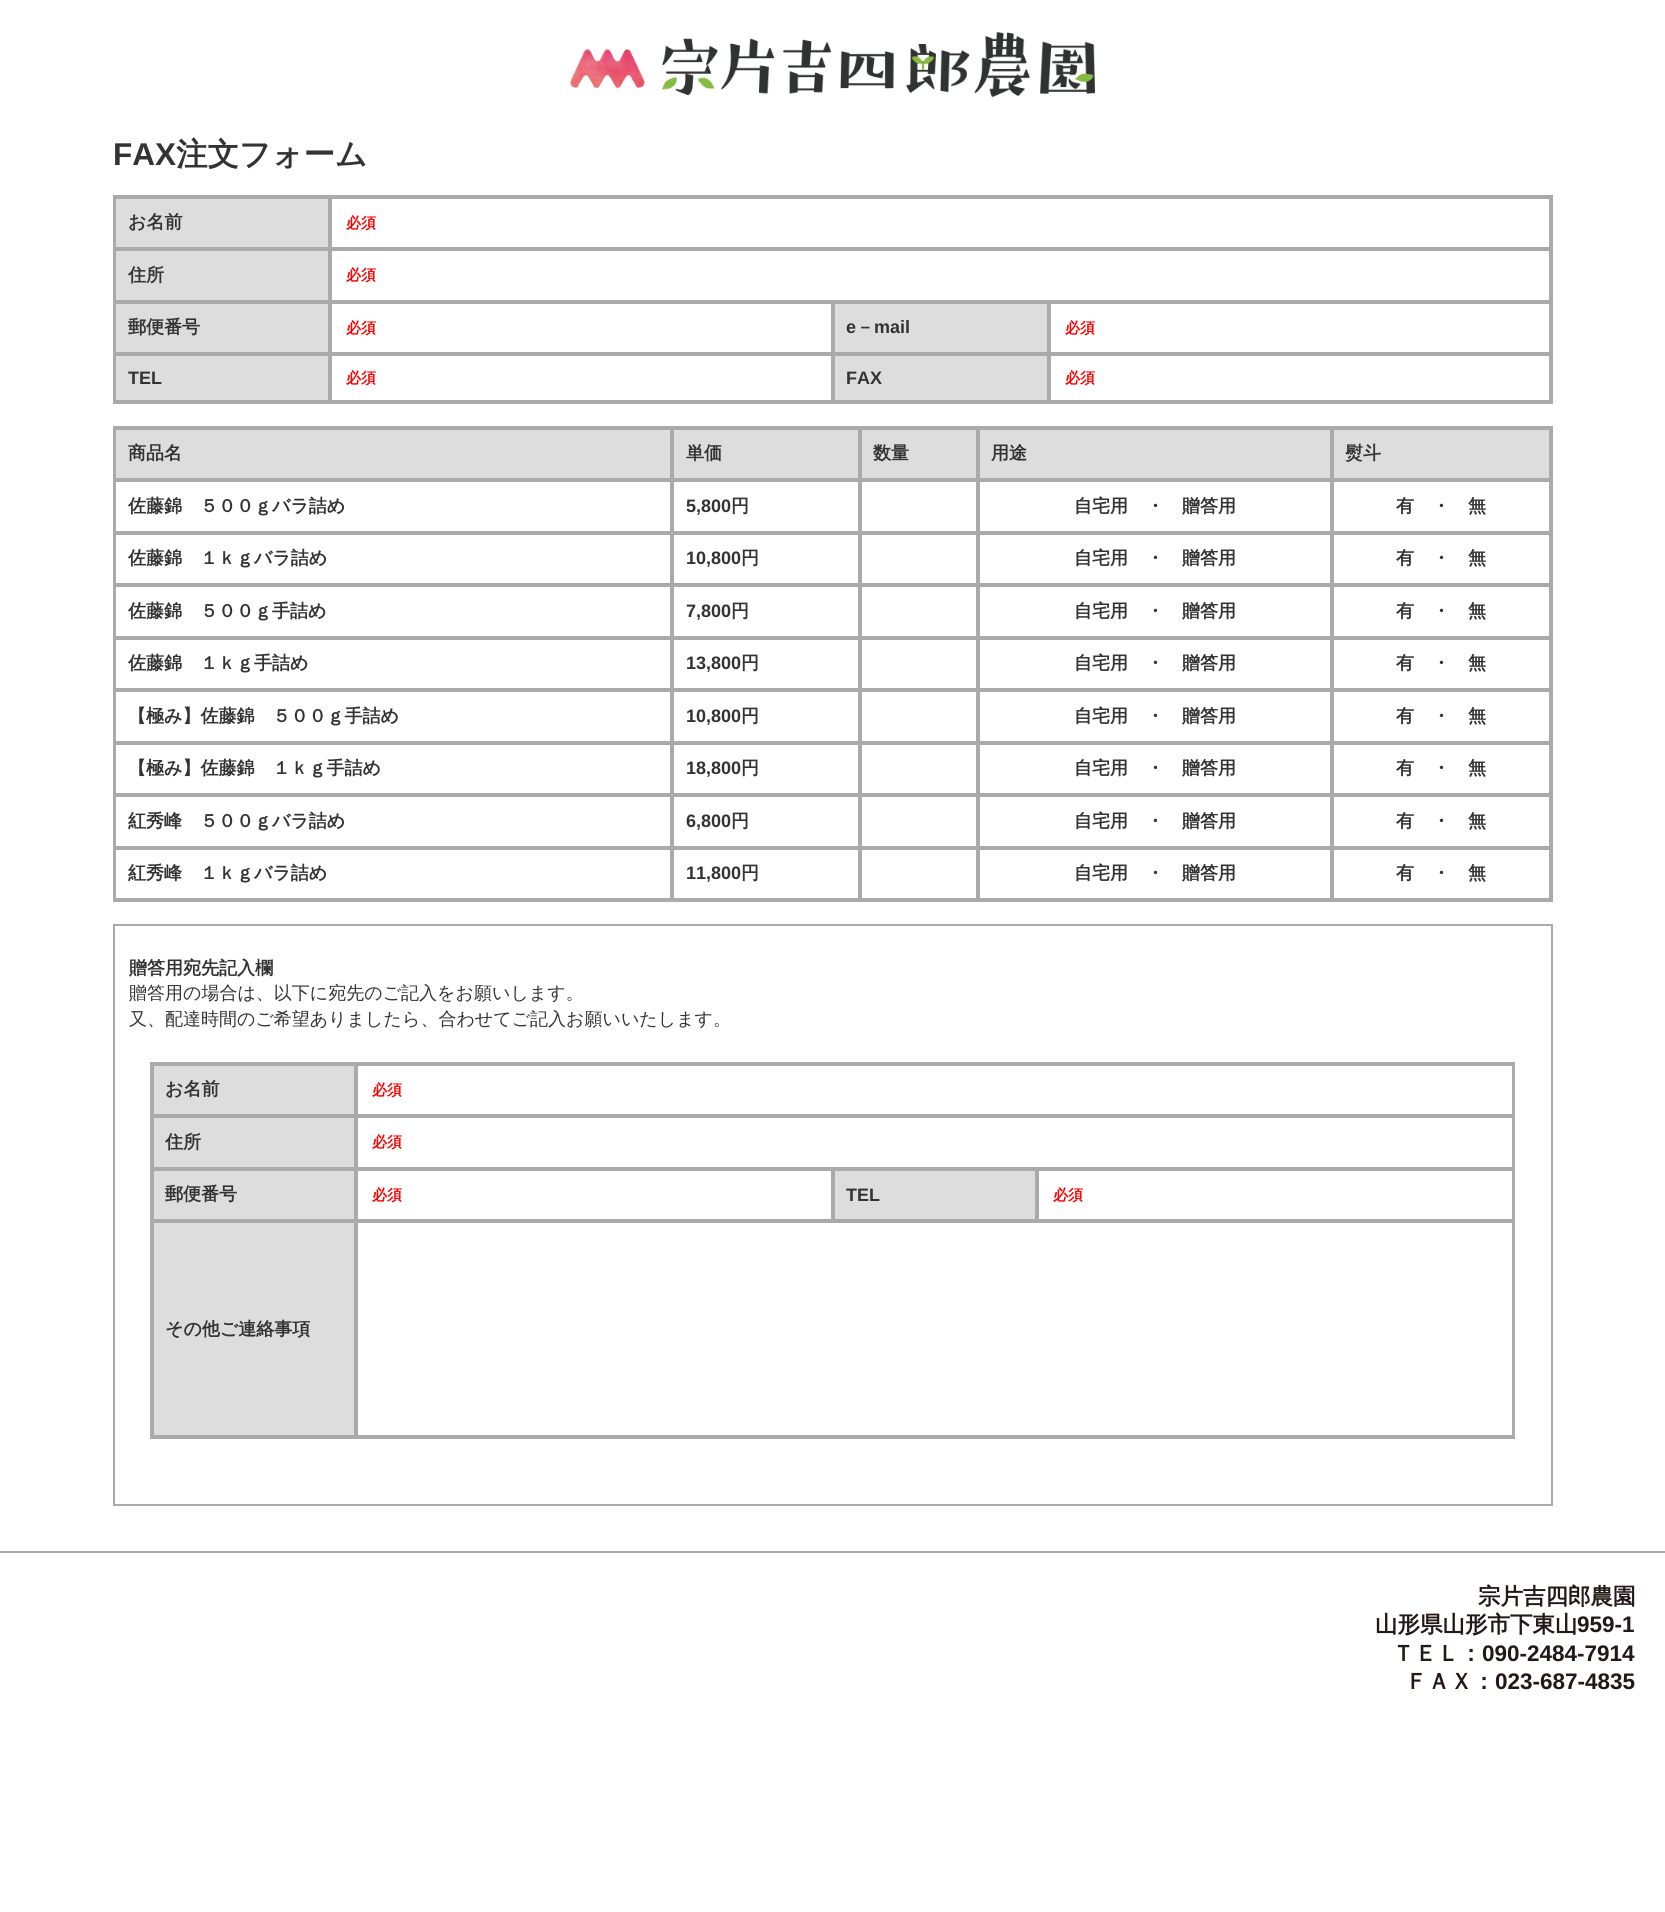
import math
import cairocffi as cairo

surface = cairo.ImageSurface(cairo.FORMAT_RGB24, 1665, 1912)
ctx = cairo.Context(surface)
options = cairo.FontOptions()
options.set_hint_metrics(cairo.HINT_METRICS_OFF)
options.set_hint_style(cairo.HINT_STYLE_NONE)
ctx.set_font_options(options)
ctx.set_miter_limit(4)


def rgb(r, g, b):
    ctx.set_source_rgb(r / 255, g / 255, b / 255)


def face(family, size, italic, bold):
    ctx.select_font_face(family, cairo.FONT_SLANT_ITALIC if italic else cairo.FONT_SLANT_NORMAL, cairo.FONT_WEIGHT_BOLD if bold else cairo.FONT_WEIGHT_NORMAL)
    ctx.set_font_size(size)


def label(x, y, s):
    ctx.move_to(x, y)
    ctx.show_text(s)


def rect(x, y, w, h):
    ctx.rectangle(x, y, w, h)
    ctx.fill()


def image(path, x, y, w, h):
    ctx.save()
    ctx.set_source_surface(cairo.ImageSurface.create_from_png(path), x, y)
    ctx.rectangle(x, y, w, h)
    ctx.fill()
    ctx.restore()


rgb(255, 255, 255)
ctx.paint()
image('image0.png', 570, 31, 525, 67)
face('Liberation Sans', 31.5, 0, 1)
rgb(51, 51, 51)
label(113, 165, 'FAX')
face('WenQuanYi Zen Hei', 31.5, 0, 1)
label(176, 165, '注文フォーム')
ctx.rectangle(114, 196, 1438, 207)
rgb(170, 170, 170)
ctx.stroke()
rgb(221, 221, 221)
ctx.rectangle(115, 198, 214, 50)
ctx.fill_preserve()
rgb(170, 170, 170)
ctx.stroke()
face('WenQuanYi Zen Hei', 18, 0, 1)
rgb(51, 51, 51)
label(128, 228, 'お名前')
ctx.rectangle(331, 198, 1219, 50)
rgb(170, 170, 170)
ctx.stroke()
face('WenQuanYi Zen Hei', 15, 0, 1)
rgb(255, 0, 0)
label(346, 228, '必須')
rgb(221, 221, 221)
ctx.rectangle(115, 250, 214, 51)
ctx.fill_preserve()
rgb(170, 170, 170)
ctx.stroke()
face('WenQuanYi Zen Hei', 18, 0, 1)
rgb(51, 51, 51)
label(128, 281, '住所')
ctx.rectangle(331, 250, 1219, 51)
rgb(170, 170, 170)
ctx.stroke()
face('WenQuanYi Zen Hei', 15, 0, 1)
rgb(255, 0, 0)
label(346, 280, '必須')
rgb(221, 221, 221)
ctx.rectangle(115, 303, 214, 50)
ctx.fill_preserve()
rgb(170, 170, 170)
ctx.stroke()
face('WenQuanYi Zen Hei', 18, 0, 1)
rgb(51, 51, 51)
label(128, 333, '郵便番号')
ctx.rectangle(331, 303, 501, 50)
rgb(170, 170, 170)
ctx.stroke()
face('WenQuanYi Zen Hei', 15, 0, 1)
rgb(255, 0, 0)
label(346, 333, '必須')
rgb(221, 221, 221)
ctx.rectangle(834, 303, 214, 50)
ctx.fill_preserve()
rgb(170, 170, 170)
ctx.stroke()
face('Liberation Sans', 18, 0, 1)
rgb(51, 51, 51)
label(846, 333, 'e')
face('WenQuanYi Zen Hei', 18, 0, 1)
label(856, 333, '－')
face('Liberation Sans', 18, 0, 1)
label(874, 333, 'mail')
ctx.rectangle(1050, 303, 500, 50)
rgb(170, 170, 170)
ctx.stroke()
face('WenQuanYi Zen Hei', 15, 0, 1)
rgb(255, 0, 0)
label(1065, 333, '必須')
rgb(221, 221, 221)
ctx.rectangle(115, 355, 214, 46)
ctx.fill_preserve()
rgb(170, 170, 170)
ctx.stroke()
face('Liberation Sans', 18, 0, 1)
rgb(51, 51, 51)
label(128, 384, 'TEL')
ctx.rectangle(331, 355, 501, 46)
rgb(170, 170, 170)
ctx.stroke()
face('WenQuanYi Zen Hei', 15, 0, 1)
rgb(255, 0, 0)
label(346, 383, '必須')
rgb(221, 221, 221)
ctx.rectangle(834, 355, 214, 46)
ctx.fill_preserve()
rgb(170, 170, 170)
ctx.stroke()
face('Liberation Sans', 18, 0, 1)
rgb(51, 51, 51)
label(846, 384, 'FAX')
ctx.rectangle(1050, 355, 500, 46)
rgb(170, 170, 170)
ctx.stroke()
face('WenQuanYi Zen Hei', 15, 0, 1)
rgb(255, 0, 0)
label(1065, 383, '必須')
ctx.rectangle(114, 427, 1438, 474)
rgb(170, 170, 170)
ctx.stroke()
rgb(221, 221, 221)
ctx.rectangle(115, 429, 556, 50)
ctx.fill_preserve()
rgb(170, 170, 170)
ctx.stroke()
face('WenQuanYi Zen Hei', 18, 0, 1)
rgb(51, 51, 51)
label(128, 459, '商品名')
rgb(221, 221, 221)
ctx.rectangle(673, 429, 186, 50)
ctx.fill_preserve()
rgb(170, 170, 170)
ctx.stroke()
rgb(51, 51, 51)
label(686, 459, '単価')
rgb(221, 221, 221)
ctx.rectangle(861, 429, 116, 50)
ctx.fill_preserve()
rgb(170, 170, 170)
ctx.stroke()
rgb(51, 51, 51)
label(873, 459, '数量')
rgb(221, 221, 221)
ctx.rectangle(979, 429, 352, 50)
ctx.fill_preserve()
rgb(170, 170, 170)
ctx.stroke()
rgb(51, 51, 51)
label(991, 459, '用途')
rgb(221, 221, 221)
ctx.rectangle(1333, 429, 217, 50)
ctx.fill_preserve()
rgb(170, 170, 170)
ctx.stroke()
rgb(51, 51, 51)
label(1345, 459, '熨斗')
ctx.rectangle(115, 481, 556, 51)
rgb(170, 170, 170)
ctx.stroke()
rgb(51, 51, 51)
label(128, 512, '佐藤錦　５００ｇバラ詰め')
ctx.rectangle(673, 481, 186, 51)
rgb(170, 170, 170)
ctx.stroke()
face('Liberation Sans', 18, 0, 1)
rgb(51, 51, 51)
label(686, 512, '5,800')
face('WenQuanYi Zen Hei', 18, 0, 1)
label(731, 512, '円')
ctx.rectangle(861, 481, 116, 51)
rgb(170, 170, 170)
ctx.stroke()
ctx.rectangle(979, 481, 352, 51)
ctx.stroke()
rgb(51, 51, 51)
label(1074, 512, '自宅用　・　贈答用')
ctx.rectangle(1333, 481, 217, 51)
rgb(170, 170, 170)
ctx.stroke()
rgb(51, 51, 51)
label(1396, 512, '有　・　無')
ctx.rectangle(115, 534, 556, 50)
rgb(170, 170, 170)
ctx.stroke()
rgb(51, 51, 51)
label(128, 564, '佐藤錦　１ｋｇバラ詰め')
ctx.rectangle(673, 534, 186, 50)
rgb(170, 170, 170)
ctx.stroke()
face('Liberation Sans', 18, 0, 1)
rgb(51, 51, 51)
label(686, 564, '10,800')
face('WenQuanYi Zen Hei', 18, 0, 1)
label(741, 564, '円')
ctx.rectangle(861, 534, 116, 50)
rgb(170, 170, 170)
ctx.stroke()
ctx.rectangle(979, 534, 352, 50)
ctx.stroke()
rgb(51, 51, 51)
label(1074, 564, '自宅用　・　贈答用')
ctx.rectangle(1333, 534, 217, 50)
rgb(170, 170, 170)
ctx.stroke()
rgb(51, 51, 51)
label(1396, 564, '有　・　無')
ctx.rectangle(115, 586, 556, 51)
rgb(170, 170, 170)
ctx.stroke()
rgb(51, 51, 51)
label(128, 617, '佐藤錦　５００ｇ手詰め')
ctx.rectangle(673, 586, 186, 51)
rgb(170, 170, 170)
ctx.stroke()
face('Liberation Sans', 18, 0, 1)
rgb(51, 51, 51)
label(686, 617, '7,800')
face('WenQuanYi Zen Hei', 18, 0, 1)
label(731, 617, '円')
ctx.rectangle(861, 586, 116, 51)
rgb(170, 170, 170)
ctx.stroke()
ctx.rectangle(979, 586, 352, 51)
ctx.stroke()
rgb(51, 51, 51)
label(1074, 617, '自宅用　・　贈答用')
ctx.rectangle(1333, 586, 217, 51)
rgb(170, 170, 170)
ctx.stroke()
rgb(51, 51, 51)
label(1396, 617, '有　・　無')
ctx.rectangle(115, 639, 556, 50)
rgb(170, 170, 170)
ctx.stroke()
rgb(51, 51, 51)
label(128, 669, '佐藤錦　１ｋｇ手詰め')
ctx.rectangle(673, 639, 186, 50)
rgb(170, 170, 170)
ctx.stroke()
face('Liberation Sans', 18, 0, 1)
rgb(51, 51, 51)
label(686, 669, '13,800')
face('WenQuanYi Zen Hei', 18, 0, 1)
label(741, 669, '円')
ctx.rectangle(861, 639, 116, 50)
rgb(170, 170, 170)
ctx.stroke()
ctx.rectangle(979, 639, 352, 50)
ctx.stroke()
rgb(51, 51, 51)
label(1074, 669, '自宅用　・　贈答用')
ctx.rectangle(1333, 639, 217, 50)
rgb(170, 170, 170)
ctx.stroke()
rgb(51, 51, 51)
label(1396, 669, '有　・　無')
ctx.rectangle(115, 691, 556, 51)
rgb(170, 170, 170)
ctx.stroke()
rgb(51, 51, 51)
label(128, 722, '【極み】佐藤錦　５００ｇ手詰め')
ctx.rectangle(673, 691, 186, 51)
rgb(170, 170, 170)
ctx.stroke()
face('Liberation Sans', 18, 0, 1)
rgb(51, 51, 51)
label(686, 722, '10,800')
face('WenQuanYi Zen Hei', 18, 0, 1)
label(741, 722, '円')
ctx.rectangle(861, 691, 116, 51)
rgb(170, 170, 170)
ctx.stroke()
ctx.rectangle(979, 691, 352, 51)
ctx.stroke()
rgb(51, 51, 51)
label(1074, 722, '自宅用　・　贈答用')
ctx.rectangle(1333, 691, 217, 51)
rgb(170, 170, 170)
ctx.stroke()
rgb(51, 51, 51)
label(1396, 722, '有　・　無')
ctx.rectangle(115, 744, 556, 50)
rgb(170, 170, 170)
ctx.stroke()
rgb(51, 51, 51)
label(128, 774, '【極み】佐藤錦　１ｋｇ手詰め')
ctx.rectangle(673, 744, 186, 50)
rgb(170, 170, 170)
ctx.stroke()
face('Liberation Sans', 18, 0, 1)
rgb(51, 51, 51)
label(686, 774, '18,800')
face('WenQuanYi Zen Hei', 18, 0, 1)
label(741, 774, '円')
ctx.rectangle(861, 744, 116, 50)
rgb(170, 170, 170)
ctx.stroke()
ctx.rectangle(979, 744, 352, 50)
ctx.stroke()
rgb(51, 51, 51)
label(1074, 774, '自宅用　・　贈答用')
ctx.rectangle(1333, 744, 217, 50)
rgb(170, 170, 170)
ctx.stroke()
rgb(51, 51, 51)
label(1396, 774, '有　・　無')
ctx.rectangle(115, 796, 556, 51)
rgb(170, 170, 170)
ctx.stroke()
rgb(51, 51, 51)
label(128, 827, '紅秀峰　５００ｇバラ詰め')
ctx.rectangle(673, 796, 186, 51)
rgb(170, 170, 170)
ctx.stroke()
face('Liberation Sans', 18, 0, 1)
rgb(51, 51, 51)
label(686, 827, '6,800')
face('WenQuanYi Zen Hei', 18, 0, 1)
label(731, 827, '円')
ctx.rectangle(861, 796, 116, 51)
rgb(170, 170, 170)
ctx.stroke()
ctx.rectangle(979, 796, 352, 51)
ctx.stroke()
rgb(51, 51, 51)
label(1074, 827, '自宅用　・　贈答用')
ctx.rectangle(1333, 796, 217, 51)
rgb(170, 170, 170)
ctx.stroke()
rgb(51, 51, 51)
label(1396, 827, '有　・　無')
ctx.rectangle(115, 849, 556, 50)
rgb(170, 170, 170)
ctx.stroke()
rgb(51, 51, 51)
label(128, 879, '紅秀峰　１ｋｇバラ詰め')
ctx.rectangle(673, 849, 186, 50)
rgb(170, 170, 170)
ctx.stroke()
face('Liberation Sans', 18, 0, 1)
rgb(51, 51, 51)
label(686, 879, '11,800')
face('WenQuanYi Zen Hei', 18, 0, 1)
label(741, 879, '円')
ctx.rectangle(861, 849, 116, 50)
rgb(170, 170, 170)
ctx.stroke()
ctx.rectangle(979, 849, 352, 50)
ctx.stroke()
rgb(51, 51, 51)
label(1074, 879, '自宅用　・　贈答用')
ctx.rectangle(1333, 849, 217, 50)
rgb(170, 170, 170)
ctx.stroke()
rgb(51, 51, 51)
label(1396, 879, '有　・　無')
ctx.rectangle(114, 925, 1438, 580)
rgb(170, 170, 170)
ctx.stroke()
rgb(51, 51, 51)
label(129, 974, '贈答用宛先記入欄')
face('WenQuanYi Zen Hei Medium', 18, 0, 0)
label(129, 999, '贈答用の場合は、以下に宛先のご記入をお願いします。')
label(129, 1025, '又、配達時間のご希望ありましたら、合わせてご記入お願いいたします。')
ctx.rectangle(151, 1063, 1363, 375)
rgb(170, 170, 170)
ctx.stroke()
rgb(221, 221, 221)
ctx.rectangle(153, 1065, 202, 50)
ctx.fill_preserve()
rgb(170, 170, 170)
ctx.stroke()
face('WenQuanYi Zen Hei', 18, 0, 1)
rgb(51, 51, 51)
label(165, 1095, 'お名前')
ctx.rectangle(357, 1065, 1156, 50)
rgb(170, 170, 170)
ctx.stroke()
face('WenQuanYi Zen Hei', 15, 0, 1)
rgb(255, 0, 0)
label(372, 1095, '必須')
rgb(221, 221, 221)
ctx.rectangle(153, 1117, 202, 51)
ctx.fill_preserve()
rgb(170, 170, 170)
ctx.stroke()
face('WenQuanYi Zen Hei', 18, 0, 1)
rgb(51, 51, 51)
label(165, 1148, '住所')
ctx.rectangle(357, 1117, 1156, 51)
rgb(170, 170, 170)
ctx.stroke()
face('WenQuanYi Zen Hei', 15, 0, 1)
rgb(255, 0, 0)
label(372, 1147, '必須')
rgb(221, 221, 221)
ctx.rectangle(153, 1170, 202, 50)
ctx.fill_preserve()
rgb(170, 170, 170)
ctx.stroke()
face('WenQuanYi Zen Hei', 18, 0, 1)
rgb(51, 51, 51)
label(165, 1200, '郵便番号')
ctx.rectangle(357, 1170, 475, 50)
rgb(170, 170, 170)
ctx.stroke()
face('WenQuanYi Zen Hei', 15, 0, 1)
rgb(255, 0, 0)
label(372, 1200, '必須')
rgb(221, 221, 221)
ctx.rectangle(834, 1170, 202, 50)
ctx.fill_preserve()
rgb(170, 170, 170)
ctx.stroke()
face('Liberation Sans', 18, 0, 1)
rgb(51, 51, 51)
label(846, 1201, 'TEL')
ctx.rectangle(1038, 1170, 475, 50)
rgb(170, 170, 170)
ctx.stroke()
face('WenQuanYi Zen Hei', 15, 0, 1)
rgb(255, 0, 0)
label(1053, 1200, '必須')
rgb(221, 221, 221)
ctx.rectangle(153, 1222, 202, 214)
ctx.fill_preserve()
rgb(170, 170, 170)
ctx.stroke()
face('WenQuanYi Zen Hei', 18, 0, 1)
rgb(51, 51, 51)
label(165, 1335, 'その他ご連絡事項')
ctx.rectangle(357, 1222, 1156, 214)
rgb(170, 170, 170)
ctx.stroke()
rect(0, 1551, 1665, 2)
face('WenQuanYi Zen Hei', 22.5, 0, 1)
rgb(34, 24, 21)
label(1478, 1604, '宗片吉四郎農園')
label(1375, 1632, '山形県山形市下東山')
face('Liberation Sans', 22.5, 0, 1)
label(1577, 1632, '959-1')
face('WenQuanYi Zen Hei', 22.5, 0, 1)
label(1392, 1661, 'ＴＥＬ：')
face('Liberation Sans', 22.5, 0, 1)
label(1482, 1661, '090-2484-7914')
face('WenQuanYi Zen Hei', 22.5, 0, 1)
label(1405, 1689, 'ＦＡＸ：')
face('Liberation Sans', 22.5, 0, 1)
label(1495, 1689, '023-687-4835')
surface.write_to_png('render.png')
